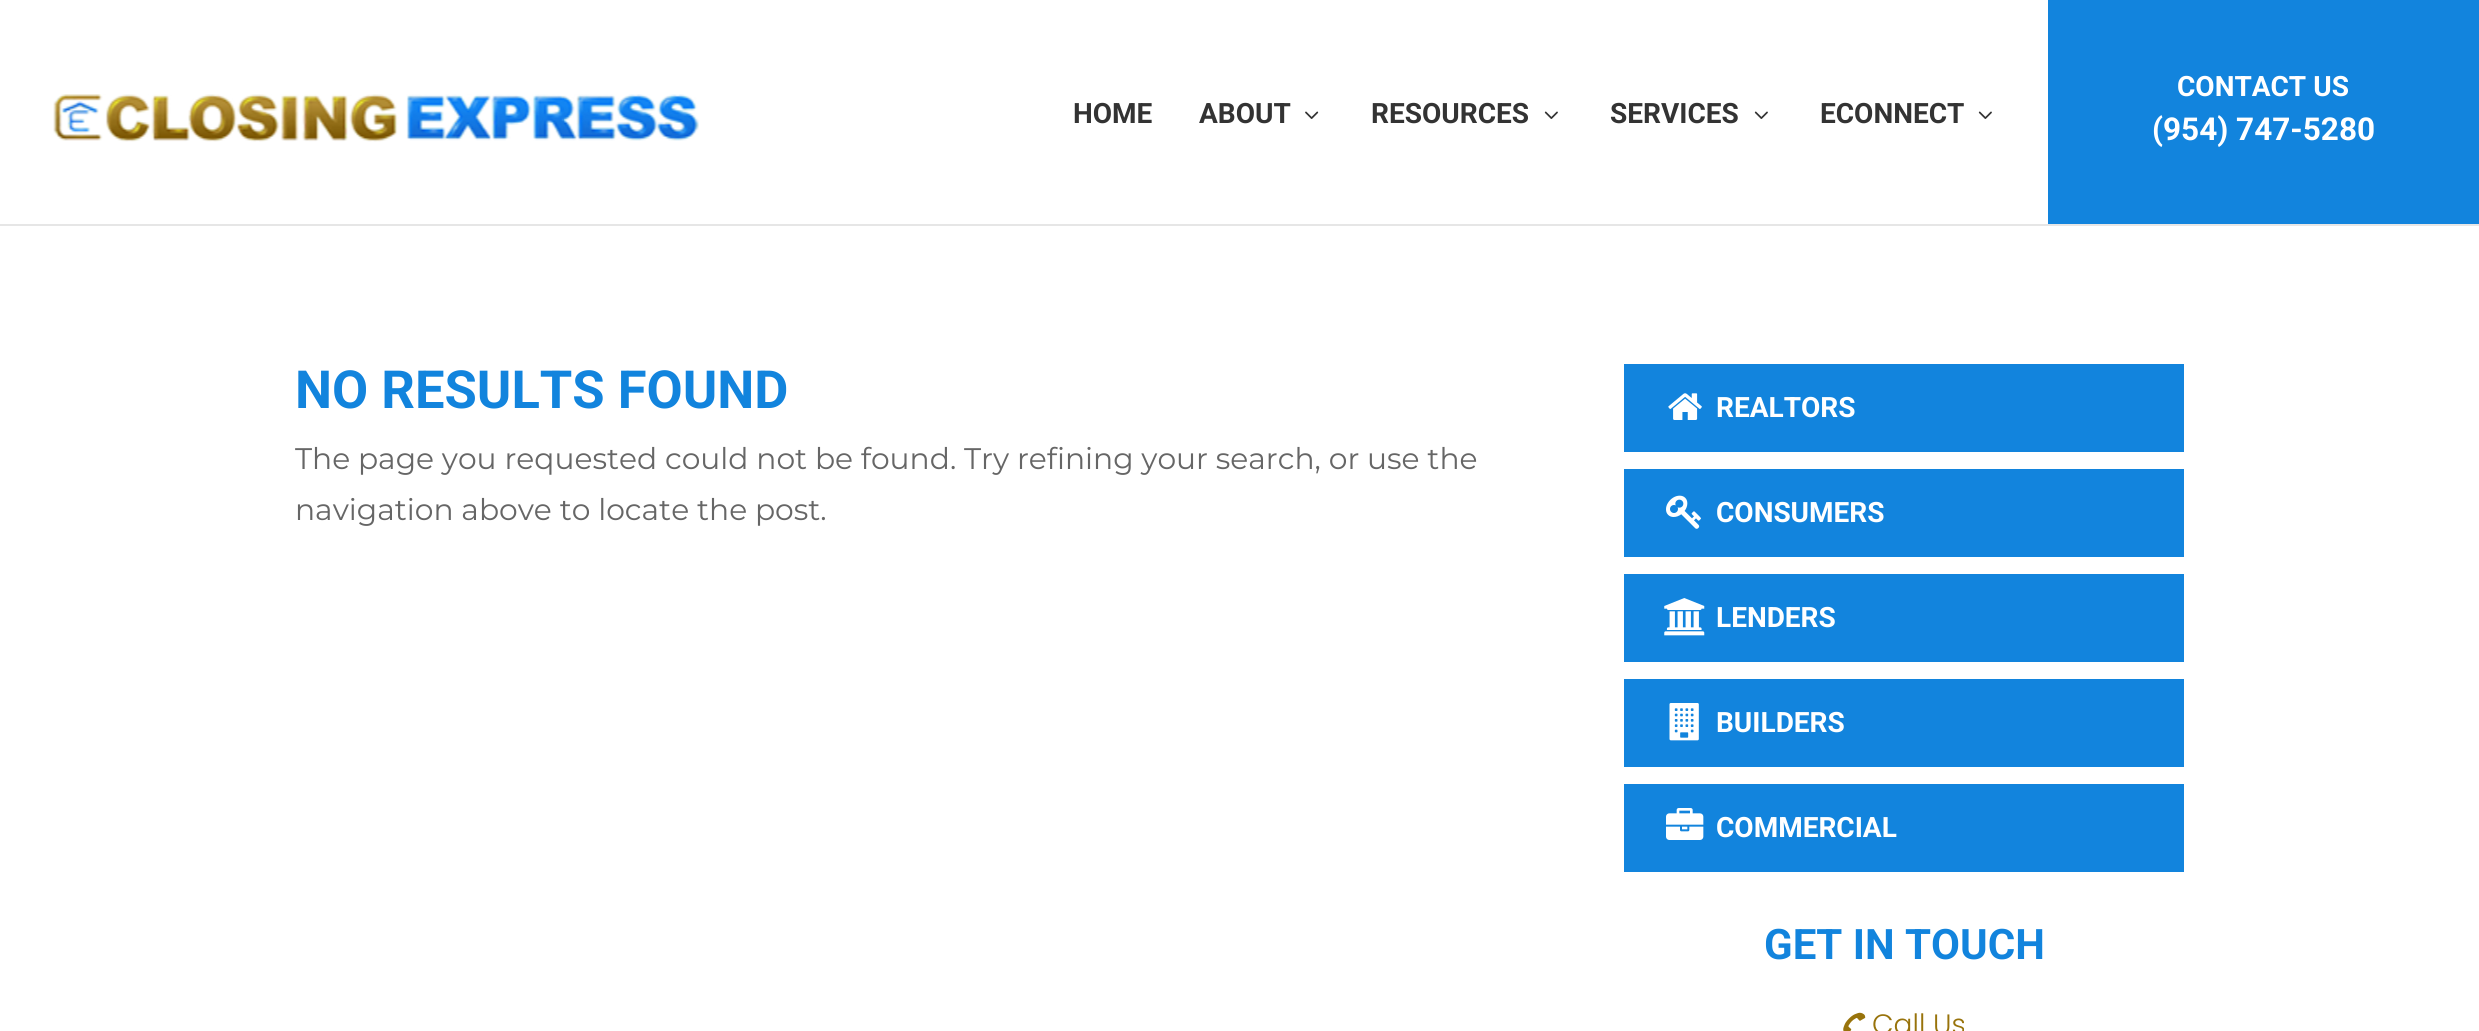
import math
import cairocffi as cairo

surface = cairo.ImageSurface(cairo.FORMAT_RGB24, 2479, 1031)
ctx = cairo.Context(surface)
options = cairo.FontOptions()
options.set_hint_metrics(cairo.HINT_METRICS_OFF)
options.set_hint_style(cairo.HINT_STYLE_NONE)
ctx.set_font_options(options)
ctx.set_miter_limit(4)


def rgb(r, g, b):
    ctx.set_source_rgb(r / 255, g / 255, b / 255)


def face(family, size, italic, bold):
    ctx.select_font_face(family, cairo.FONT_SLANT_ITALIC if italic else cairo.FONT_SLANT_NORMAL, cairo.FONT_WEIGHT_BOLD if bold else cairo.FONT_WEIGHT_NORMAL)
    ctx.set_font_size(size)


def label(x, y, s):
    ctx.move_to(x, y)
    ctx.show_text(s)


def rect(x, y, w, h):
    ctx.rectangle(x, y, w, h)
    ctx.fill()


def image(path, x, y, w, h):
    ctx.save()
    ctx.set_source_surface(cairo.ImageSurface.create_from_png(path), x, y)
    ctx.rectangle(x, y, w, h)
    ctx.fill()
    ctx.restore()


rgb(255, 255, 255)
ctx.paint()
rgb(230, 230, 230)
ctx.new_path()
ctx.move_to(0, 224)
ctx.line_to(0, 226)
ctx.line_to(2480, 226)
ctx.line_to(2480, 2)
ctx.line_to(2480, 224)
ctx.close_path()
ctx.fill()
image('image0.png', 53, 94, 646, 48)
face('Roboto', 28, 0, 1)
rgb(51, 51, 51)
label(1073, 123, 'HOME')
label(1199, 123, 'ABOUT')
image('image1.png', 1305, 111, 14, 8)
label(1371, 123, 'RESOURCES')
image('image2.png', 1544, 111, 14, 8)
label(1610, 123, 'SERVICES')
image('image2.png', 1754, 111, 14, 8)
label(1820, 123, 'ECONNECT')
image('image2.png', 1978, 111, 14, 8)
rgb(18, 132, 221)
rect(2048, 0, 431, 224)
rgb(255, 255, 255)
label(2177, 96, 'CONTACT US')
face('Roboto', 31.5, 0, 1)
label(2152, 140, '(954) 747-5280')
face('Roboto', 52.5, 0, 1)
rgb(18, 132, 221)
label(295, 408, 'NO RESULTS FOUND')
face('Montserrat', 29.75, 0, 0)
rgb(102, 102, 102)
label(295, 469, 'The page you requested could not be found. Try refining your search, or use the')
label(295, 520, 'navigation above to locate the post.')
rgb(18, 132, 221)
rect(1624, 364, 560, 88)
image('image3.png', 1668, 393, 34, 27)
face('Roboto', 28, 0, 1)
rgb(255, 255, 255)
label(1716, 417, 'REALTORS')
rgb(18, 132, 221)
rect(1624, 469, 560, 88)
image('image4.png', 1666, 495, 35, 34)
rgb(255, 255, 255)
label(1716, 522, 'CONSUMERS')
rgb(18, 132, 221)
rect(1624, 574, 560, 88)
image('image5.png', 1664, 598, 41, 38)
rgb(255, 255, 255)
label(1716, 627, 'LENDERS')
rgb(18, 132, 221)
rect(1624, 679, 560, 88)
image('image6.png', 1669, 703, 30, 38)
rgb(255, 255, 255)
label(1716, 732, 'BUILDERS')
rgb(18, 132, 221)
rect(1624, 784, 560, 88)
image('image7.png', 1666, 808, 38, 32)
rgb(255, 255, 255)
label(1716, 837, 'COMMERCIAL')
face('Roboto', 42, 0, 1)
rgb(18, 132, 221)
label(1764, 959, 'GET IN TOUCH')
image('image8.png', 1843, 1012, 23, 19)
face('Poppins Light', 28, 0, 0)
rgb(152, 115, 11)
label(1872, 1034, 'Call Us')
surface.write_to_png('render.png')
